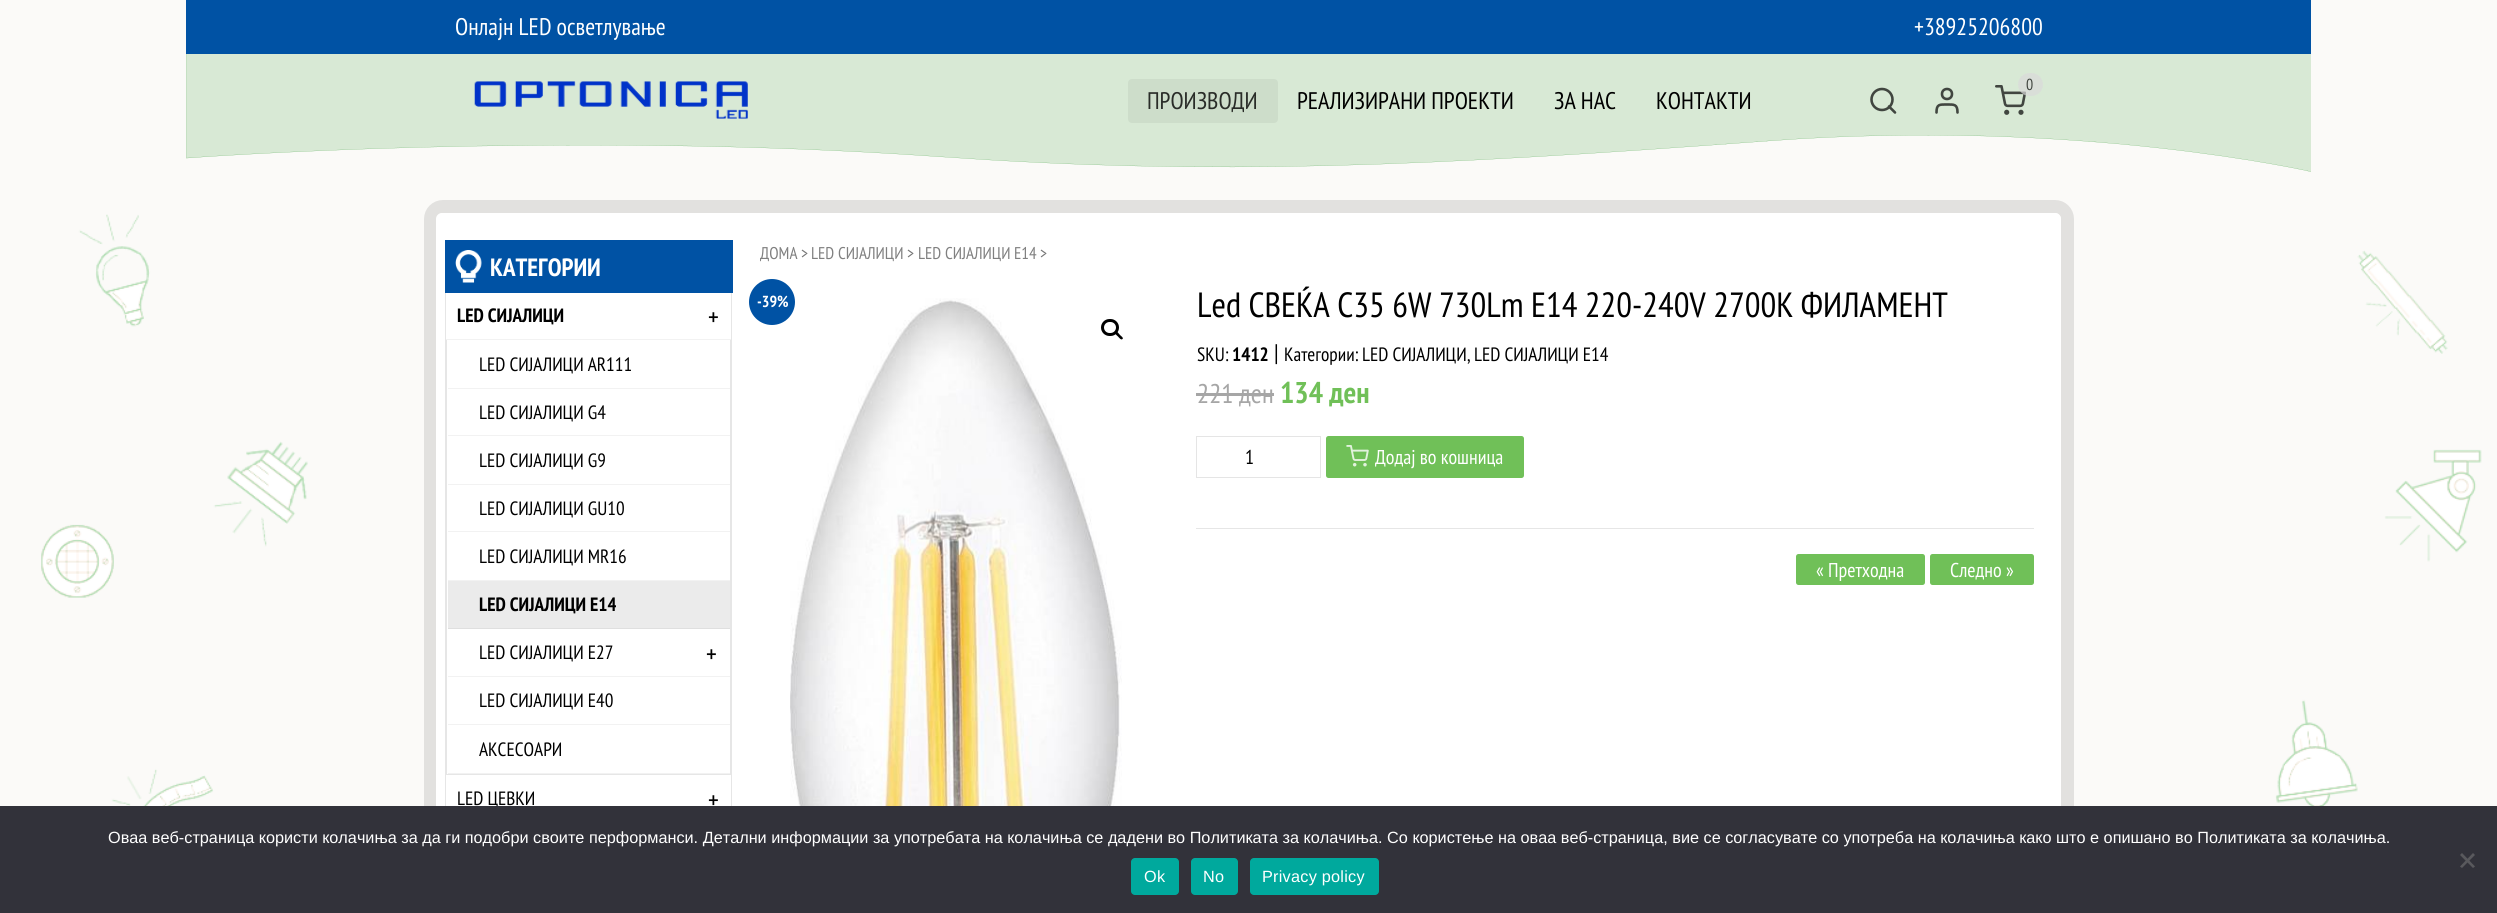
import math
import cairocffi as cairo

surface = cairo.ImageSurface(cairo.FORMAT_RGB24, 2497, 913)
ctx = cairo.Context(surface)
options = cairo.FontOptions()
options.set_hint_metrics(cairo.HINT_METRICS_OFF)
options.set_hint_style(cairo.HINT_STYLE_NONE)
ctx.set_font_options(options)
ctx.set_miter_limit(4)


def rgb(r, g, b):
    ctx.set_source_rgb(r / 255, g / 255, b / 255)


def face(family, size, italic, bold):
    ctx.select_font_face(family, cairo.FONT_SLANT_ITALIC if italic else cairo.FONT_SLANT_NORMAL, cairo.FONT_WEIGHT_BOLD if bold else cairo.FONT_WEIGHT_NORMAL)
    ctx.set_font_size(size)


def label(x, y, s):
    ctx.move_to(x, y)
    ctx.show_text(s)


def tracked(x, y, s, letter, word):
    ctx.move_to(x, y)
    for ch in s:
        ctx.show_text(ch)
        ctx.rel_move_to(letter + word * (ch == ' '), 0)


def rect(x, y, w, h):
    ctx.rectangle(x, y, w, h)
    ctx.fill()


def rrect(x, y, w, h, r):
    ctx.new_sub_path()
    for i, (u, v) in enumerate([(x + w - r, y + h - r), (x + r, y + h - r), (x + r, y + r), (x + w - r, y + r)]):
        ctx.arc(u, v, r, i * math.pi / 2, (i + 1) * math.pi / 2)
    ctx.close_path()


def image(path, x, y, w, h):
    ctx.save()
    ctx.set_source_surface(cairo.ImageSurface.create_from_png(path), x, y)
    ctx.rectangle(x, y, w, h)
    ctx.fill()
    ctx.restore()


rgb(251, 250, 248)
ctx.paint()
image('image0.png', 41, 214, 2441, 592)
rgb(0, 82, 164)
rect(186, 0, 2125, 54)
face('PT Sans Narrow', 24, 0, 0)
rgb(255, 255, 255)
label(455, 35, 'Онлајн LED осветлување')
label(1914, 35, '+38925206800')
image('image1.png', 186, 54, 2125, 118)
image('image2.png', 474, 81, 274, 38)
rgb(205, 221, 202)
rrect(1128, 79, 150, 44, 4)
ctx.fill()
rgb(41, 44, 40)
label(1147, 109, 'ПРОИЗВОДИ')
rgb(0, 0, 0)
label(1297, 109, 'РЕАЛИЗИРАНИ ПРОЕКТИ')
label(1554, 109, 'ЗА НАС')
label(1656, 109, 'КОНТАКТИ')
image('image3.png', 1995, 85, 31, 30)
ctx.set_source_rgba(0.859, 0.859, 0.859, 0.7)
rrect(2018, 73, 25, 23, 11.5)
ctx.fill()
face('PT Sans Narrow', 16, 0, 0)
rgb(65, 70, 64)
label(2026, 90, '0')
ctx.new_path()
ctx.arc(1882, 99.5, 10.5, 0, 2 * math.pi)
ctx.set_line_width(2.6)
ctx.stroke()
ctx.new_path()
ctx.move_to(1895, 112.5)
ctx.line_to(1889, 106.5)
ctx.set_line_cap(cairo.LINE_CAP_ROUND)
ctx.set_line_join(cairo.LINE_JOIN_ROUND)
ctx.stroke()
ctx.new_path()
ctx.move_to(1957.5, 112.5)
ctx.curve_to(1957.5, 104, 1954, 104.5, 1947, 104.5)
ctx.curve_to(1939.5, 104.5, 1936.5, 104, 1936.5, 112.5)
ctx.stroke()
ctx.arc(1947, 94, 5, 0, 2 * math.pi)
ctx.set_line_cap(cairo.LINE_CAP_BUTT)
ctx.set_line_join(cairo.LINE_JOIN_MITER)
ctx.stroke()
rrect(430.5, 206.5, 1637, 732, 12.5)
rgb(226, 225, 223)
ctx.set_line_width(13)
ctx.stroke()
rgb(255, 255, 255)
rrect(436, 213, 1625, 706, 6)
ctx.fill()
rgb(0, 82, 164)
rect(445, 240, 288, 53)
image('image4.png', 455, 250, 27, 33)
face('PT Sans Narrow', 25, 0, 1)
rgb(255, 255, 255)
label(490, 276, 'КАТЕГОРИИ')
rgb(230, 230, 230)
rect(731, 293, 1, 513)
rect(445, 293, 1, 513)
rgb(242, 242, 242)
rect(446, 339, 285, 1)
face('PT Sans Narrow', 19.25, 0, 1)
rgb(0, 0, 0)
label(457, 322, 'LED СИЈАЛИЦИ')
face('PT Sans Narrow', 26, 0, 0)
label(708, 326, '+')
rgb(230, 230, 230)
rect(730, 340, 1, 435)
rect(446, 774, 285, 1)
rect(446, 340, 1, 435)
rgb(242, 242, 242)
rect(448, 388, 282, 1)
face('PT Sans Narrow', 19.25, 0, 0)
rgb(0, 0, 0)
label(479, 371, 'LED СИЈАЛИЦИ AR111')
rgb(242, 242, 242)
rect(448, 435, 282, 1)
rgb(0, 0, 0)
label(479, 419, 'LED СИЈАЛИЦИ G4')
rgb(242, 242, 242)
rect(448, 484, 282, 1)
rgb(0, 0, 0)
label(479, 467, 'LED СИЈАЛИЦИ G9')
rgb(242, 242, 242)
rect(448, 531, 282, 1)
rgb(0, 0, 0)
label(479, 515, 'LED СИЈАЛИЦИ GU10')
rgb(242, 242, 242)
rect(448, 580, 282, 1)
rgb(0, 0, 0)
label(479, 563, 'LED СИЈАЛИЦИ MR16')
rgb(235, 235, 235)
rect(448, 581, 282, 47)
rgb(223, 223, 223)
rect(448, 628, 282, 1)
face('PT Sans Narrow', 19.25, 0, 1)
rgb(0, 0, 0)
label(479, 611, 'LED СИЈАЛИЦИ Е14')
rgb(242, 242, 242)
rect(448, 676, 282, 1)
face('PT Sans Narrow', 19.25, 0, 0)
rgb(0, 0, 0)
label(479, 659, 'LED СИЈАЛИЦИ Е27')
face('PT Sans Narrow', 26, 0, 0)
label(706, 663, '+')
rgb(242, 242, 242)
rect(448, 724, 282, 1)
face('PT Sans Narrow', 19.25, 0, 0)
rgb(0, 0, 0)
label(479, 707, 'LED СИЈАЛИЦИ Е40')
rgb(242, 242, 242)
rect(448, 773, 282, 1)
rgb(0, 0, 0)
label(479, 756, 'АКСЕСОАРИ')
label(457, 805, 'LED ЦЕВКИ')
face('PT Sans Narrow', 26, 0, 0)
label(708, 809, '+')
ctx.save()
ctx.rectangle(760, 240, 1274, 26)
ctx.clip()
face('PT Sans Narrow', 17, 0, 0)
rgb(128, 128, 128)
label(760, 259, 'ДОМА')
ctx.restore()
face('PT Sans Narrow', 17, 0, 0)
rgb(118, 118, 118)
label(801, 259, '>')
rgb(128, 128, 128)
label(811, 259, 'LED СИЈАЛИЦИ')
rgb(118, 118, 118)
label(907, 259, '>')
rgb(128, 128, 128)
label(918, 259, 'LED СИЈАЛИЦИ Е14')
rgb(118, 118, 118)
label(1040, 259, '>')
image('image5.png', 790, 298, 332, 508)
rgb(0, 82, 164)
ctx.arc(772, 302, 23, 0, 2 * math.pi)
ctx.fill()
face('PT Sans Narrow', 16, 0, 1)
rgb(255, 255, 255)
label(757, 307, '-39%')
rrect(1102.5, 320.5, 15, 14, 7)
rgb(0, 0, 0)
ctx.set_line_width(3)
ctx.stroke()
ctx.new_path()
ctx.move_to(1115.5, 332)
ctx.curve_to(1117, 330.5, 1119, 334, 1120, 335)
ctx.curve_to(1120.5, 335.5, 1124, 338, 1122.5, 339)
ctx.curve_to(1121, 340.5, 1119, 337.5, 1118, 336.5)
ctx.curve_to(1117.5, 336, 1114, 333.5, 1115.5, 332)
ctx.close_path()
ctx.fill()
face('PT Sans Narrow', 35, 0, 0)
label(1197, 317, 'Led СВЕЌА C35 6W 730Lm E14 220-240V 2700K ФИЛАМЕНТ')
face('PT Sans Narrow', 19.25, 0, 0)
label(1197, 361, 'SKU:')
face('PT Sans Narrow', 19.25, 0, 1)
label(1232, 361, '1412')
face('PT Sans Narrow', 24, 0, 0)
label(1274, 361, '|')
face('PT Sans Narrow', 19.25, 0, 0)
label(1284, 361, 'Категории:')
label(1362, 361, 'LED СИЈАЛИЦИ')
label(1467, 361, ',')
label(1474, 361, 'LED СИЈАЛИЦИ Е14')
face('PT Sans Narrow', 27, 0, 0)
rgb(166, 166, 166)
label(1197, 403, '221')
rect(1196, 393, 43, 3)
label(1239, 403, 'ден')
rect(1239, 393, 35, 3)
face('PT Sans Narrow', 30, 0, 1)
rgb(112, 192, 88)
label(1280, 403, '134 ден')
ctx.rectangle(1196.5, 436.5, 124, 41)
rgb(229, 229, 229)
ctx.set_line_width(1)
ctx.stroke()
face('PT Sans Narrow', 20, 0, 0)
rgb(0, 0, 0)
label(1245, 464, '1')
rgb(112, 192, 88)
rrect(1326, 436, 198, 42, 2.5)
ctx.fill()
image('image6.png', 1346, 445, 23, 22)
rgb(255, 255, 255)
label(1375, 464, 'Додај во кошница')
rgb(230, 230, 230)
rect(1196, 528, 838, 1)
rgb(112, 192, 88)
rrect(1796, 554, 129, 31, 2.5)
ctx.fill()
rgb(255, 255, 255)
label(1816, 577, '« Претходна')
rgb(112, 192, 88)
rrect(1930, 554, 104, 31, 2.5)
ctx.fill()
rgb(255, 255, 255)
label(1950, 577, 'Следно »')
rgb(50, 50, 58)
rect(0, 806, 2497, 107)
face('Liberation Sans', 16.25, 0, 0)
rgb(255, 255, 255)
label(108, 843, 'Оваа веб-страница користи колачиња за да ги подобри своите перформанси. Детални информации за употребата на колачиња се дадени во Политиката за колачиња. Со користење на оваа веб-страница, вие се согласувате со употреба на колачиња како што е опишано во Политиката за колачиња.')
rgb(89, 89, 93)
ctx.new_path()
ctx.move_to(2473, 853)
ctx.line_to(2475, 855)
ctx.line_to(2462, 868)
ctx.line_to(2460, 866.5)
ctx.close_path()
ctx.fill()
ctx.new_path()
ctx.move_to(2460, 855)
ctx.line_to(2462, 853)
ctx.line_to(2475, 866.5)
ctx.line_to(2473, 868)
ctx.close_path()
ctx.fill()
rgb(0, 169, 157)
rrect(1131, 858, 48, 37, 4)
ctx.fill()
rgb(255, 255, 255)
tracked(1144, 882, 'Ok', 0.25, 0)
rgb(0, 169, 157)
rrect(1191, 858, 47, 37, 4)
ctx.fill()
rgb(255, 255, 255)
tracked(1203, 882, 'No', 0.25, 0)
rgb(0, 169, 157)
rrect(1250, 858, 129, 37, 4)
ctx.fill()
rgb(255, 255, 255)
tracked(1262, 882, 'Privacy policy', 0.25, 0)
surface.write_to_png('render.png')
